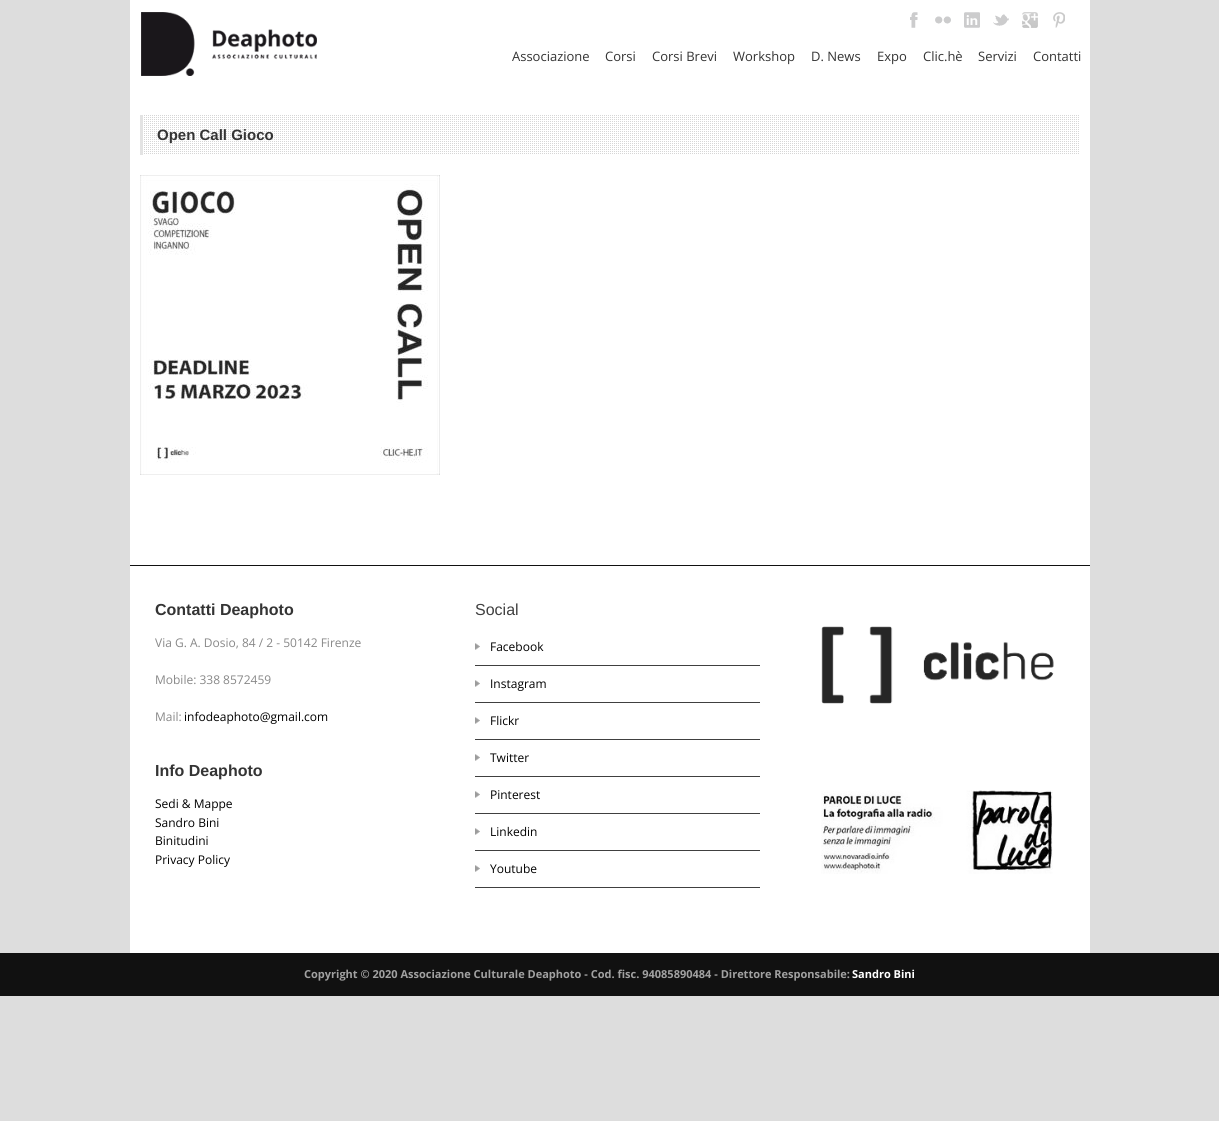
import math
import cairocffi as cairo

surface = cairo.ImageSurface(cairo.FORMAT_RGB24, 1219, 1121)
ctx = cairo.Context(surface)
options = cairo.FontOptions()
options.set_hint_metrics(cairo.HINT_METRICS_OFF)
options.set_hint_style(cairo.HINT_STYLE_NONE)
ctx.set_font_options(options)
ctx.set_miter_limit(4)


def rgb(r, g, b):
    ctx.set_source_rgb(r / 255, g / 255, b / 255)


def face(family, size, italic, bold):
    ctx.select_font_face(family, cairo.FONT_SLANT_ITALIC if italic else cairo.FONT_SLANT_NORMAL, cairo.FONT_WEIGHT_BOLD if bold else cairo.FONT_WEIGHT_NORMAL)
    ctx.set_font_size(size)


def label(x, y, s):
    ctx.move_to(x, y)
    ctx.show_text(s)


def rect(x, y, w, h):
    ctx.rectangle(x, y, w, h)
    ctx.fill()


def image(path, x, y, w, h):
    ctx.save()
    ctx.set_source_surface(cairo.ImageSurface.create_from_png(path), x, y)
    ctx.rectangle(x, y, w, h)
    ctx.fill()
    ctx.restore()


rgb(221, 221, 221)
ctx.paint()
rgb(255, 255, 255)
rect(130, 0, 960, 565)
image('image0.png', 141, 12, 176, 64)
image('image1.png', 910, 12, 8, 16)
image('image2.png', 935, 16, 16, 8)
image('image3.png', 964, 12, 16, 16)
image('image4.png', 993, 14, 16, 12)
image('image5.png', 1022, 12, 16, 16)
image('image6.png', 1053, 12, 12, 16)
face('Open Sans', 13, 0, 0)
rgb(52, 52, 52)
label(512, 61, 'Associazione')
label(605, 61, 'Corsi')
label(652, 61, 'Corsi Brevi')
label(733, 61, 'Workshop')
label(811, 61, 'D. News')
label(877, 61, 'Expo')
label(923, 61, 'Clic.hè')
label(978, 61, 'Servizi')
label(1033, 61, 'Contatti')
image('image7.png', 144, 115, 935, 39)
rgb(227, 227, 227)
rect(140, 115, 3, 40)
face('Liberation Sans', 15, 0, 1)
rgb(52, 52, 52)
label(157, 140, 'Open Call Gioco')
image('image8.png', 140, 175, 300, 300)
rgb(255, 255, 255)
rect(130, 566, 960, 387)
rgb(17, 17, 17)
rect(130, 565, 960, 1)
face('Liberation Sans', 16, 0, 1)
rgb(52, 52, 52)
label(155, 615, 'Contatti Deaphoto')
face('Open Sans', 12, 0, 0)
rgb(136, 136, 136)
label(155, 647, 'Via G. A. Dosio, 84 / 2 - 50142 Firenze')
label(155, 684, 'Mobile: 338 8572459')
label(155, 721, 'Mail:')
rgb(0, 0, 0)
label(184, 721, 'infodeaphoto@gmail.com')
face('Liberation Sans', 16, 0, 1)
rgb(52, 52, 52)
label(155, 776, 'Info Deaphoto')
face('Open Sans', 12, 0, 0)
rgb(0, 0, 0)
label(155, 808, 'Sedi & Mappe')
label(155, 827, 'Sandro Bini')
label(155, 845, 'Binitudini')
label(155, 864, 'Privacy Policy')
face('Liberation Sans', 16, 0, 0)
rgb(64, 64, 64)
label(475, 615, 'Social')
image('image9.png', 475, 643, 5, 7)
rect(475, 665, 285, 1)
face('Open Sans', 12, 0, 0)
rgb(0, 0, 0)
label(490, 651, 'Facebook')
image('image9.png', 475, 680, 5, 7)
rgb(64, 64, 64)
rect(475, 702, 285, 1)
rgb(0, 0, 0)
label(490, 688, 'Instagram')
image('image9.png', 475, 717, 5, 7)
rgb(64, 64, 64)
rect(475, 739, 285, 1)
rgb(0, 0, 0)
label(490, 725, 'Flickr')
image('image9.png', 475, 754, 5, 7)
rgb(64, 64, 64)
rect(475, 776, 285, 1)
rgb(0, 0, 0)
label(490, 762, 'Twitter')
image('image9.png', 475, 791, 5, 7)
rgb(64, 64, 64)
rect(475, 813, 285, 1)
rgb(0, 0, 0)
label(490, 799, 'Pinterest')
image('image9.png', 475, 828, 5, 7)
rgb(64, 64, 64)
rect(475, 850, 285, 1)
rgb(0, 0, 0)
label(490, 836, 'Linkedin')
image('image9.png', 475, 865, 5, 7)
rgb(64, 64, 64)
rect(475, 887, 285, 1)
rgb(0, 0, 0)
label(490, 873, 'Youtube')
image('image10.png', 821, 626, 233, 78)
image('image11.png', 821, 790, 232, 84)
rgb(17, 17, 17)
rect(0, 953, 1219, 43)
face('Open Sans', 11, 0, 1)
rgb(161, 161, 161)
label(304, 978, 'Copyright © 2020 Associazione Culturale Deaphoto - Cod. fisc. 94085890484 - Direttore Responsabile:')
rgb(255, 255, 255)
label(852, 978, 'Sandro Bini')
surface.write_to_png('render.png')
